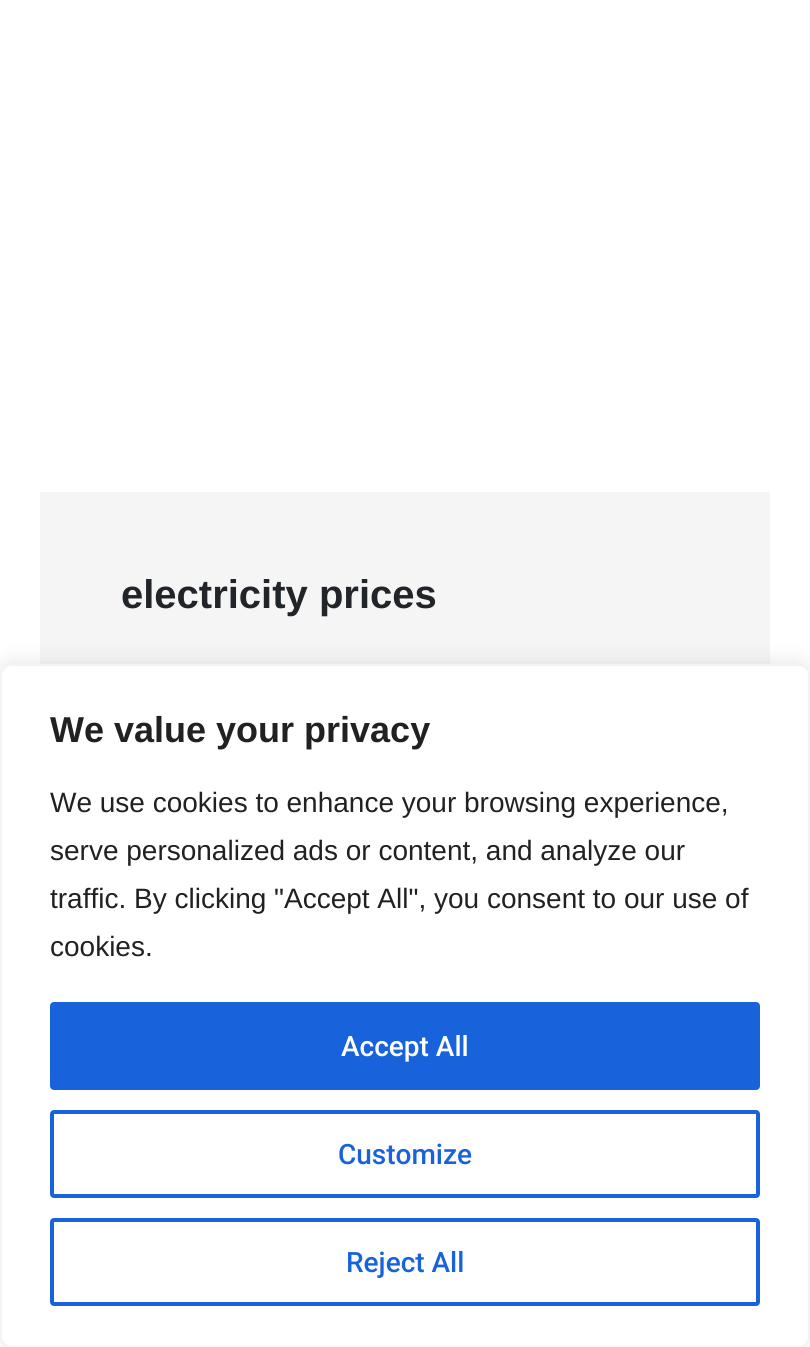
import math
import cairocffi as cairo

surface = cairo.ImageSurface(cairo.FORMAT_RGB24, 810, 1347)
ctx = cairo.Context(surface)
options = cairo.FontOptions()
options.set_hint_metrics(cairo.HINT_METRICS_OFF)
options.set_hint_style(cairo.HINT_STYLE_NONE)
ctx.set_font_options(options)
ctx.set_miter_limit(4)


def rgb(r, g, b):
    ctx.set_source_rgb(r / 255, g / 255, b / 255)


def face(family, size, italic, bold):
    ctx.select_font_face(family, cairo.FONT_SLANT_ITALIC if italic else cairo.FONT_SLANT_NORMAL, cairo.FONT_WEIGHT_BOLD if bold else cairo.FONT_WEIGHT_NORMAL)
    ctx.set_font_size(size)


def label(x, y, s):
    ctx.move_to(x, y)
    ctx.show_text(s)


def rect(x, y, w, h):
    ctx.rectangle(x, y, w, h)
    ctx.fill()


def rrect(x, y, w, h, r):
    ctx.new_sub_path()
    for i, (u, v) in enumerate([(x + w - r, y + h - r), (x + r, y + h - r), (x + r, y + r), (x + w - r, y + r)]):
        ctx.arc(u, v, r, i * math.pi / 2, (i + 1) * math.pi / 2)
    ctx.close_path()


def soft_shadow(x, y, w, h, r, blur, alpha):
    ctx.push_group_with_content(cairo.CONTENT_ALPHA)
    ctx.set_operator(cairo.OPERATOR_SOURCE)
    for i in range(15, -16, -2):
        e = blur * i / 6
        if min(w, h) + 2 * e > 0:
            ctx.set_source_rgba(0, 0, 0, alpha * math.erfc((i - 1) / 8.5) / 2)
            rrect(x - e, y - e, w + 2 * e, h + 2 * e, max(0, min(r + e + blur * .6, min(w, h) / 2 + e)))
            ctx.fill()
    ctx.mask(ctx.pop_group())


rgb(255, 255, 255)
ctx.paint()
rgb(245, 245, 245)
rect(40, 492, 730, 172)
face('Liberation Sans', 40, 0, 1)
rgb(33, 37, 41)
label(121, 608, 'electricity prices')
rgb(172, 171, 171)
soft_shadow(0, 662, 810, 684, 12, 10, 0.3)
rgb(255, 255, 255)
rrect(1, 665, 808, 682, 11)
ctx.fill_preserve()
rgb(244, 244, 244)
ctx.stroke()
face('Liberation Sans', 36, 0, 1)
rgb(33, 33, 33)
label(50, 742, 'We value your privacy')
face('Liberation Sans', 28, 0, 0)
label(50, 812, 'We use cookies to enhance your browsing experience,')
label(50, 860, 'serve personalized ads or content, and analyze our')
label(50, 908, 'traffic. By clicking "Accept All", you consent to our use of')
label(50, 956, 'cookies.')
rgb(24, 99, 220)
rrect(52, 1004, 706, 84, 2)
ctx.fill_preserve()
ctx.set_line_width(4)
ctx.stroke()
face('Roboto Medium', 28, 0, 0)
rgb(255, 255, 255)
label(341, 1056, 'Accept All')
rrect(52, 1112, 706, 84, 2)
rgb(24, 99, 220)
ctx.stroke()
label(338, 1164, 'Customize')
rrect(52, 1220, 706, 84, 2)
ctx.stroke()
label(346, 1272, 'Reject All')
surface.write_to_png('render.png')
